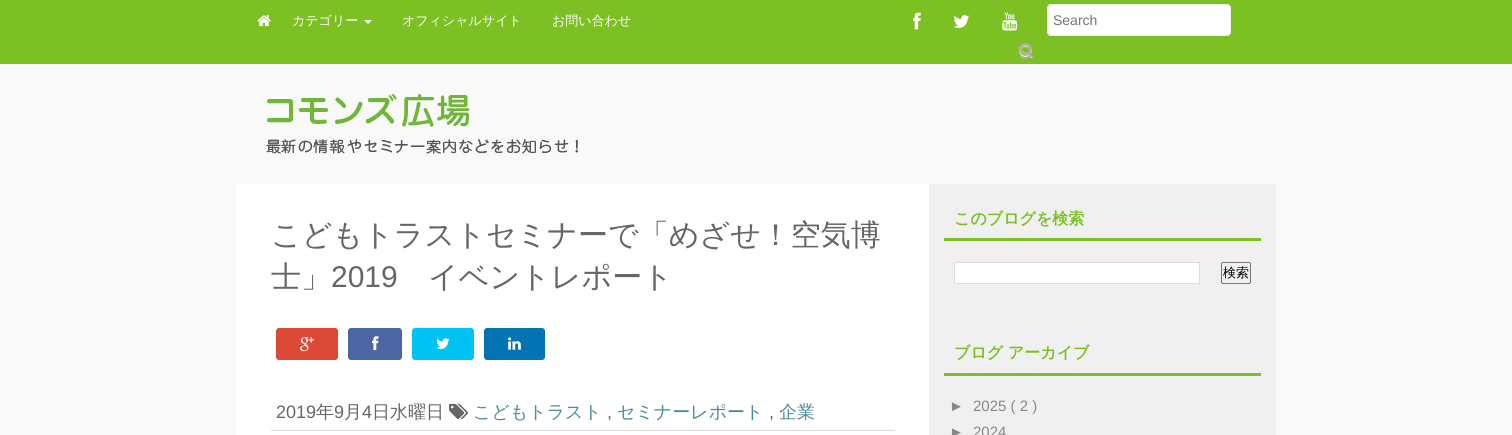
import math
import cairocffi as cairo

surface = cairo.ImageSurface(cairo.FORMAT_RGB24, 1512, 435)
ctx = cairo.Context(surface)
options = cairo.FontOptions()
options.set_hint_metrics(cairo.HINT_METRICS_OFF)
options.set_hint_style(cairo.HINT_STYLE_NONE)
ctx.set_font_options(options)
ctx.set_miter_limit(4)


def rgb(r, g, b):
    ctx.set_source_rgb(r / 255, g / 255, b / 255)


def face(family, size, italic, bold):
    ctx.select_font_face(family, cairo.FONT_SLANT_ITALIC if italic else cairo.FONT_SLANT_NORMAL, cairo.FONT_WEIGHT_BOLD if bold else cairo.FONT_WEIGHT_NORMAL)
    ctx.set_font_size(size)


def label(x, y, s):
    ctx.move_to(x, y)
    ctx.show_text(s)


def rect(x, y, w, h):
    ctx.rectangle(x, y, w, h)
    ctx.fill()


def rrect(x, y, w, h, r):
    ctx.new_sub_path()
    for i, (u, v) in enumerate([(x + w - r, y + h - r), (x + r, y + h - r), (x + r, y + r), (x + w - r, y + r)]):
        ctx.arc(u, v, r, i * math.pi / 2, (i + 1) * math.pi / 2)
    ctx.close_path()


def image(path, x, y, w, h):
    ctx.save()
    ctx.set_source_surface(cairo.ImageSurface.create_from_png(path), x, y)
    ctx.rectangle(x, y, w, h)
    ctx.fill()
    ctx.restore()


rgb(249, 249, 249)
ctx.paint()
rgb(124, 192, 35)
rect(0, 0, 1512, 64)
image('image0.png', 257, 15, 14, 11)
face('WenQuanYi Zen Hei Medium', 13, 0, 0)
rgb(255, 255, 255)
label(292, 25, 'カテゴリー')
ctx.new_path()
ctx.move_to(364, 20)
ctx.line_to(372, 20)
ctx.line_to(368, 24)
ctx.close_path()
ctx.fill()
label(402, 25, 'オフィシャルサイト')
label(552, 25, 'お問い合わせ')
image('image1.png', 913, 12, 8, 18)
image('image2.png', 953, 15, 17, 13)
image('image3.png', 1002, 12, 16, 19)
rrect(1047.5, 4.5, 183, 31, 3.5)
ctx.fill_preserve()
rgb(238, 238, 238)
ctx.set_line_width(1)
ctx.stroke()
face('Liberation Sans', 14, 0, 0)
rgb(117, 117, 117)
label(1053, 25, 'Search')
image('image4.png', 1019, 43, 14, 15)
face('Liberation Sans', 18, 0, 0)
rgb(157, 193, 110)
label(1019, 59, 'S')
image('image5.png', 266, 94, 312, 60)
rgb(255, 255, 255)
rect(236, 184, 693, 251)
face('WenQuanYi Zen Hei Medium', 30, 0, 0)
rgb(102, 102, 102)
label(271, 245, 'こどもトラストセミナーで「めざせ！空気博')
label(271, 287, '士」')
face('Liberation Sans', 30, 0, 0)
label(331, 287, '2019')
face('WenQuanYi Zen Hei Medium', 30, 0, 0)
label(428, 287, 'イベントレポート')
rgb(219, 74, 55)
rrect(276, 328, 62, 32, 3)
ctx.fill()
image('image6.png', 300, 337, 14, 15)
rgb(76, 102, 164)
rrect(348, 328, 54, 32, 3)
ctx.fill()
image('image7.png', 372, 336, 7, 15)
rgb(0, 195, 243)
rrect(412, 328, 62, 32, 3)
ctx.fill()
image('image8.png', 436, 338, 14, 11)
rgb(2, 116, 179)
rrect(484, 328, 61, 32, 3)
ctx.fill()
image('image9.png', 508, 337, 13, 13)
rgb(221, 221, 221)
rect(271, 430, 623, 1)
face('Liberation Sans', 18, 0, 0)
rgb(102, 102, 102)
label(276, 418, '2019')
face('WenQuanYi Zen Hei Medium', 18, 0, 0)
label(316, 418, '年')
face('Liberation Sans', 18, 0, 0)
label(334, 418, '9')
face('WenQuanYi Zen Hei Medium', 18, 0, 0)
label(344, 418, '月')
face('Liberation Sans', 18, 0, 0)
label(362, 418, '4')
face('WenQuanYi Zen Hei Medium', 18, 0, 0)
label(372, 418, '日水曜日')
image('image10.png', 449, 403, 19, 16)
rgb(77, 139, 151)
label(473, 418, 'こどもトラスト')
face('Liberation Sans', 18, 0, 0)
rgb(102, 102, 102)
label(607, 418, ',')
face('WenQuanYi Zen Hei Medium', 18, 0, 0)
rgb(77, 139, 151)
label(617, 418, 'セミナーレポート')
face('Liberation Sans', 18, 0, 0)
rgb(102, 102, 102)
label(769, 418, ',')
face('WenQuanYi Zen Hei Medium', 18, 0, 0)
rgb(77, 139, 151)
label(779, 418, '企業')
rgb(240, 240, 240)
rect(929, 184, 347, 251)
rgb(124, 192, 35)
rect(944, 238, 317, 3)
face('WenQuanYi Zen Hei', 16, 0, 1)
label(954, 224, 'このブログを検索')
rgb(255, 255, 255)
ctx.rectangle(954.5, 262.5, 245, 21)
ctx.fill_preserve()
rgb(221, 221, 221)
ctx.stroke()
rrect(1221.5, 262.5, 29, 21, 1.5)
rgb(118, 118, 118)
ctx.stroke()
face('WenQuanYi Zen Hei Medium', 13, 0, 0)
rgb(0, 0, 0)
label(1223, 277, '検索')
rgb(124, 192, 35)
rect(944, 373, 317, 3)
face('WenQuanYi Zen Hei', 16, 0, 1)
label(954, 358, 'ブログ アーカイブ')
face('Liberation Sans', 15, 0, 0)
rgb(136, 136, 136)
label(949, 411, '►')
label(973, 411, '2025 ( 2 )')
label(949, 437, '►')
label(973, 437, '2024')
surface.write_to_png('render.png')
